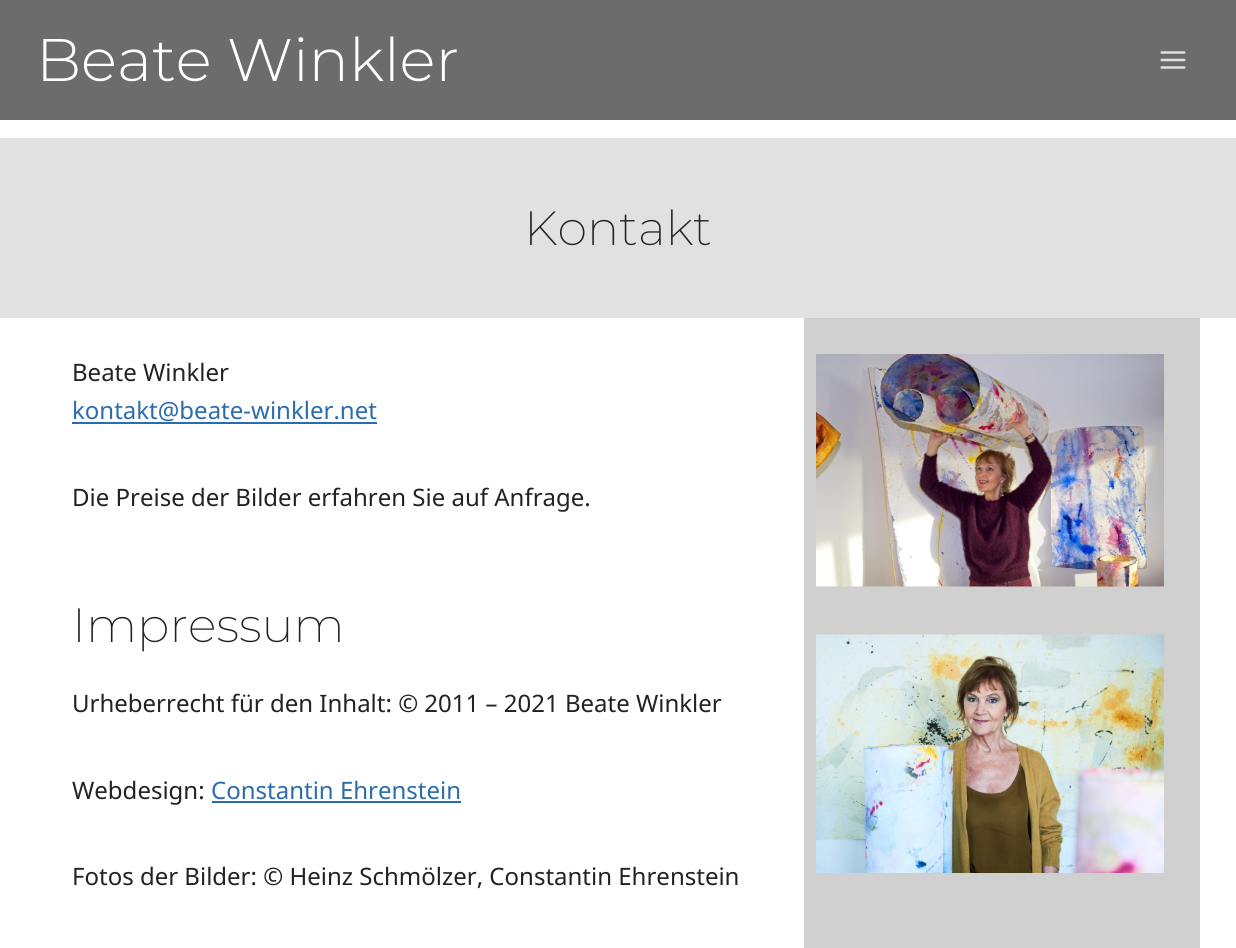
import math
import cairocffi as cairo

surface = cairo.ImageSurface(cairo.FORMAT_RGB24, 1236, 948)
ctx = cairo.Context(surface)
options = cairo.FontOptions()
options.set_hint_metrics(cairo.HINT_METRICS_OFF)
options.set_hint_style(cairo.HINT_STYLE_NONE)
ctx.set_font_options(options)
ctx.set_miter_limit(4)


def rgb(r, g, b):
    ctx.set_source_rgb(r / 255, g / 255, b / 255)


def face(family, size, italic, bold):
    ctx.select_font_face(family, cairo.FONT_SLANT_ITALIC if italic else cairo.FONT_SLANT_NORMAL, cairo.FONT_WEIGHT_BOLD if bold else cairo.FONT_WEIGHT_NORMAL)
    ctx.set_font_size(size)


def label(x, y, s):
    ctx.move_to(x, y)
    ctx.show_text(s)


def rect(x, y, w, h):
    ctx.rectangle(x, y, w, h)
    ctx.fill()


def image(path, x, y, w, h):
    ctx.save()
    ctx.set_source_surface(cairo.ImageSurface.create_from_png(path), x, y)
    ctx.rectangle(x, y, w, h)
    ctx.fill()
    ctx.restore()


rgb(255, 255, 255)
ctx.paint()
rgb(109, 108, 108)
rect(0, 0, 1236, 120)
face('Montserrat Light', 60, 0, 0)
rgb(255, 255, 255)
label(36, 81, 'Beate Winkler')
image('image0.png', 1160, 51, 26, 18)
rgb(225, 225, 225)
rect(0, 138, 1236, 180)
face('Montserrat ExtraLight', 48, 0, 0)
rgb(34, 34, 34)
label(524, 245, 'Kontakt')
face('Noto Sans', 24, 0, 0)
label(72, 381, 'Beate Winkler')
rgb(43, 108, 176)
label(72, 419, 'kontakt@beate-winkler.net')
rect(72, 422, 305, 2)
rgb(34, 34, 34)
label(72, 506, 'Die Preise der Bilder erfahren Sie auf Anfrage.')
face('Montserrat ExtraLight', 48, 0, 0)
label(72, 642, 'Impressum')
face('Noto Sans', 24, 0, 0)
label(72, 712, 'Urheberrecht für den Inhalt: © 2011 – 2021 Beate Winkler')
label(72, 799, 'Webdesign:')
rgb(43, 108, 176)
label(211, 799, 'Constantin Ehrenstein')
rect(212, 801, 249, 2)
rgb(34, 34, 34)
label(72, 885, 'Fotos der Bilder: © Heinz Schmölzer, Constantin Ehrenstein')
rgb(208, 208, 208)
rect(804, 318, 396, 630)
image('image1.png', 816, 354, 348, 233)
image('image2.png', 816, 634, 348, 239)
surface.write_to_png('render.png')
